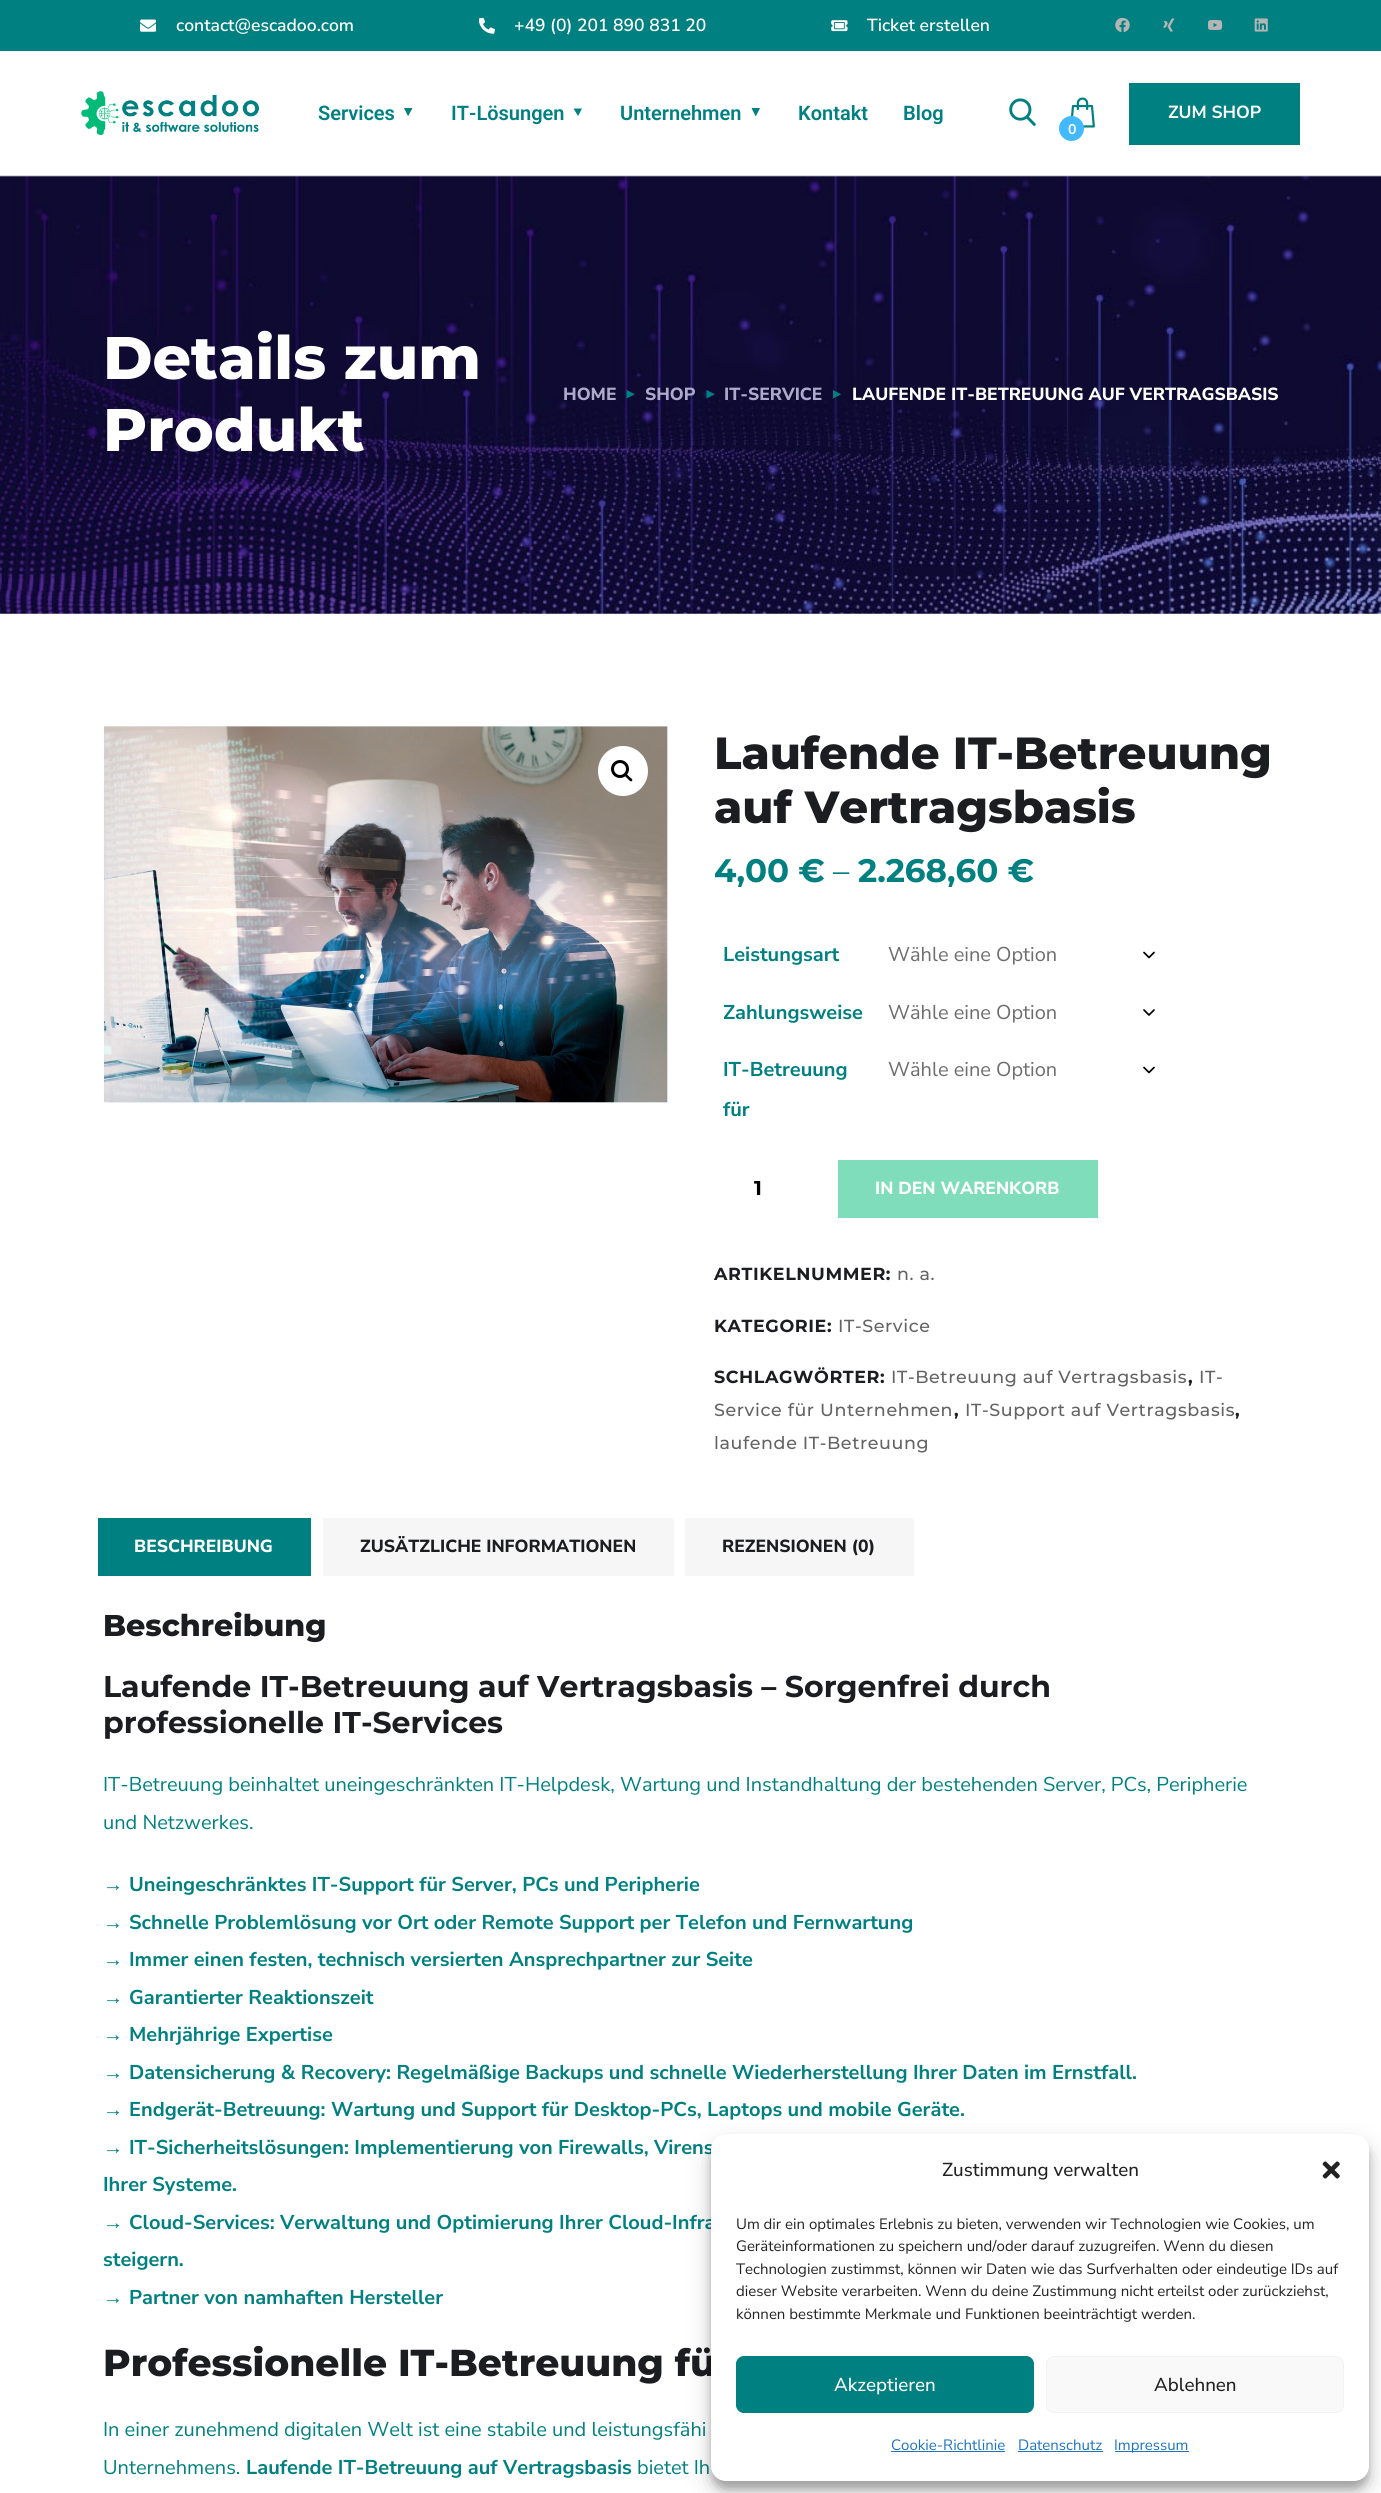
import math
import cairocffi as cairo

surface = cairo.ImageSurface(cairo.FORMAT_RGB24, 1381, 2493)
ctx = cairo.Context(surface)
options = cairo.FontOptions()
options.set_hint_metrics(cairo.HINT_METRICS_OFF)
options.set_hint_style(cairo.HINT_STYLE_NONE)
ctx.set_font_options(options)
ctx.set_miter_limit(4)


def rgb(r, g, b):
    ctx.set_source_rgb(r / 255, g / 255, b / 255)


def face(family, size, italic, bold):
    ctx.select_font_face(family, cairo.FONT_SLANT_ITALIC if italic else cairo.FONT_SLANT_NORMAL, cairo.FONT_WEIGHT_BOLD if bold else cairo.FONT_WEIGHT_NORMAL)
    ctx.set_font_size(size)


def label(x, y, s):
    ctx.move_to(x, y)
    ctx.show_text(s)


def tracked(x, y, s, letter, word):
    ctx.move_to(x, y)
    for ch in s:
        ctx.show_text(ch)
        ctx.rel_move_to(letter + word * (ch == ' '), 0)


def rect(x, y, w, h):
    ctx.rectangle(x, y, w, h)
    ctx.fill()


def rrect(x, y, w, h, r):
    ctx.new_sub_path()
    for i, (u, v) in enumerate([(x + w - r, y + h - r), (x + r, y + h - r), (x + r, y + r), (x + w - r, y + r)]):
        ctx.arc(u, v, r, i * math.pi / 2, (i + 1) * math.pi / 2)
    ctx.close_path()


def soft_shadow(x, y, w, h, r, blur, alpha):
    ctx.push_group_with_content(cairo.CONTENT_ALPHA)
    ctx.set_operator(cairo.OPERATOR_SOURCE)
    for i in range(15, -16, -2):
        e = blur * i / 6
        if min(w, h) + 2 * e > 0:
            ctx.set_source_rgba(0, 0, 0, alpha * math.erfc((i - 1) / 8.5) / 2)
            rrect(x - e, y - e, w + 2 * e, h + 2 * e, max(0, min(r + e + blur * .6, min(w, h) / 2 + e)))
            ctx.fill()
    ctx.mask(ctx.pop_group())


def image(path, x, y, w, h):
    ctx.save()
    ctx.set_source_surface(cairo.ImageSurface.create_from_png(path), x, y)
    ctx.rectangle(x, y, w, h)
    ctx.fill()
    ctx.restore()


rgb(255, 255, 255)
ctx.paint()
rgb(0, 128, 128)
rect(0, 0, 1381, 51)
image('image0.png', 140, 19, 16, 13)
face('Nunito Sans SemiBold', 17.5, 0, 0)
rgb(255, 255, 255)
label(176, 31, 'contact@escadoo.com')
image('image1.png', 479, 18, 16, 16)
label(514, 31, '+49 (0) 201 890 831 20')
image('image2.png', 831, 20, 17, 12)
label(867, 31, 'Ticket erstellen')
image('image3.png', 1115, 18, 15, 15)
image('image4.png', 1163, 18, 12, 14)
image('image5.png', 1208, 20, 15, 10)
image('image6.png', 1254, 18, 14, 14)
rgb(220, 221, 225)
rect(0, 175, 1381, 1)
image('image7.png', 81, 91, 179, 44)
face('Roboto SemiBold', 20, 0, 0)
rgb(0, 128, 128)
label(318, 120, 'Services')
ctx.new_path()
ctx.move_to(408.5, 115.5)
ctx.line_to(408, 116)
ctx.line_to(404, 108)
ctx.line_to(412.5, 108)
ctx.close_path()
ctx.fill()
label(451, 120, 'IT-Lösungen')
ctx.new_path()
ctx.move_to(578, 116)
ctx.line_to(573.5, 108.5)
ctx.line_to(582, 108.5)
ctx.close_path()
ctx.fill()
label(620, 120, 'Unternehmen')
ctx.new_path()
ctx.move_to(756, 116)
ctx.line_to(755.5, 116)
ctx.line_to(751.5, 108)
ctx.line_to(760, 108)
ctx.close_path()
ctx.fill()
label(798, 120, 'Kontakt')
label(903, 120, 'Blog')
image('image8.png', 1009, 98, 27, 28)
rect(1129, 83, 171, 62)
face('Nunito Sans', 17.5, 0, 1)
rgb(255, 255, 255)
label(1168, 118, 'ZUM SHOP')
image('image9.png', 1070, 97, 25, 31)
rgb(67, 186, 255)
ctx.arc(1071.5, 128.5, 12.5, 0, 2 * math.pi)
ctx.fill()
face('Nunito Sans', 14, 0, 1)
rgb(255, 255, 255)
label(1068, 134, '0')
image('image10.png', 0, 176, 1381, 438)
face('Montserrat ExtraBold', 60, 0, 0)
label(103, 379, 'Details zum')
label(103, 451, 'Produkt')
face('Nunito Sans ExtraBold', 17.5, 0, 0)
rgb(174, 170, 203)
label(563, 400, 'HOME')
rgb(0, 128, 128)
ctx.new_path()
ctx.move_to(634.5, 394)
ctx.line_to(634.5, 394.5)
ctx.line_to(626.5, 398.5)
ctx.line_to(626.5, 390)
ctx.close_path()
ctx.fill()
rgb(174, 170, 203)
label(645, 400, 'SHOP')
rgb(0, 128, 128)
ctx.new_path()
ctx.move_to(714.5, 394)
ctx.line_to(714.5, 394.5)
ctx.line_to(706.5, 398.5)
ctx.line_to(706.5, 390)
ctx.close_path()
ctx.fill()
rgb(174, 170, 203)
label(724, 400, 'IT-SERVICE')
rgb(0, 128, 128)
ctx.new_path()
ctx.move_to(840.5, 394)
ctx.line_to(841, 394.5)
ctx.line_to(833, 398.5)
ctx.line_to(833, 390)
ctx.close_path()
ctx.fill()
rgb(255, 255, 255)
label(852, 400, 'LAUFENDE IT-BETREUUNG AUF VERTRAGSBASIS')
rgb(240, 246, 255)
rect(104, 726, 564, 377)
image('image11.png', 103, 726, 565, 377)
rgb(255, 255, 255)
ctx.arc(623, 771, 25, 0, 2 * math.pi)
ctx.fill()
ctx.arc(620, 769, 7.5, 0, 2 * math.pi)
rgb(0, 0, 0)
ctx.set_line_width(3)
ctx.stroke()
ctx.new_path()
ctx.move_to(625, 774)
ctx.curve_to(626, 772.5, 628.5, 776, 629, 776.5)
ctx.curve_to(630, 777.5, 633.5, 779.5, 632, 781)
ctx.curve_to(630.5, 782.5, 628, 779, 627.5, 778.5)
ctx.curve_to(626.5, 777.5, 623.5, 775.5, 625, 774)
ctx.close_path()
ctx.fill()
face('Montserrat ExtraBold', 45, 0, 0)
rgb(27, 29, 33)
label(714, 769, 'Laufende IT-Betreuung')
label(714, 823, 'auf Vertragsbasis')
face('Montserrat', 32.5, 0, 1)
rgb(0, 128, 128)
label(714, 882, '4,00 €')
face('Montserrat', 32.5, 0, 0)
label(833, 882, '–')
face('Montserrat', 32.5, 0, 1)
label(858, 882, '2.268,60 €')
face('Nunito Sans', 20, 0, 1)
label(723, 961, 'Leistungsart')
ctx.new_path()
ctx.move_to(1144, 952.5)
ctx.line_to(1149, 957.5)
ctx.line_to(1154, 952.5)
rgb(0, 0, 0)
ctx.set_line_width(1.7)
ctx.set_line_cap(cairo.LINE_CAP_ROUND)
ctx.set_line_join(cairo.LINE_JOIN_ROUND)
ctx.stroke()
face('Nunito Sans', 20, 0, 0)
rgb(109, 109, 109)
label(888, 961, 'Wähle eine Option')
face('Nunito Sans', 20, 0, 1)
rgb(0, 128, 128)
label(723, 1019, 'Zahlungsweise')
ctx.new_path()
ctx.move_to(1144, 1010)
ctx.line_to(1149, 1015)
ctx.line_to(1154, 1010)
rgb(0, 0, 0)
ctx.stroke()
face('Nunito Sans', 20, 0, 0)
rgb(109, 109, 109)
label(888, 1019, 'Wähle eine Option')
face('Nunito Sans', 20, 0, 1)
rgb(0, 128, 128)
label(723, 1076, 'IT-Betreuung')
label(723, 1116, 'für')
ctx.new_path()
ctx.move_to(1144, 1067.5)
ctx.line_to(1149, 1072.5)
ctx.line_to(1154, 1067.5)
rgb(0, 0, 0)
ctx.stroke()
face('Nunito Sans', 20, 0, 0)
rgb(109, 109, 109)
label(888, 1076, 'Wähle eine Option')
face('Montserrat', 20, 0, 1)
rgb(0, 0, 0)
label(754, 1195, '1')
rgb(128, 221, 188)
rect(838, 1160, 260, 58)
face('Nunito Sans ExtraBold', 17.5, 0, 0)
rgb(255, 255, 255)
label(875, 1194, 'IN DEN WARENKORB')
face('Montserrat', 17.5, 0, 1)
rgb(27, 29, 33)
tracked(714, 1280, 'ARTIKELNUMMER:', 0.6, 0)
face('Montserrat Medium', 17.5, 0, 0)
rgb(99, 99, 99)
tracked(897, 1280, 'n. a.', 0.6, 0)
face('Montserrat', 17.5, 0, 1)
rgb(27, 29, 33)
tracked(714, 1332, 'KATEGORIE:', 0.6, 0)
face('Montserrat Medium', 17.5, 0, 0)
rgb(99, 99, 99)
tracked(838, 1332, 'IT-Service', 0.6, 0)
face('Montserrat', 17.5, 0, 1)
rgb(27, 29, 33)
tracked(714, 1383, 'SCHLAGWÖRTER:', 0.6, 0)
face('Montserrat Medium', 17.5, 0, 0)
rgb(99, 99, 99)
tracked(891, 1383, 'IT-Betreuung auf Vertragsbasis', 0.6, 0)
face('Montserrat', 17.5, 0, 1)
rgb(27, 29, 33)
tracked(1188, 1383, ',', 0.6, 0)
face('Montserrat Medium', 17.5, 0, 0)
rgb(99, 99, 99)
tracked(1199, 1383, 'IT-', 0.6, 0)
tracked(714, 1416, 'Service für Unternehmen', 0.6, 0)
face('Montserrat', 17.5, 0, 1)
rgb(27, 29, 33)
tracked(954, 1416, ',', 0.6, 0)
face('Montserrat Medium', 17.5, 0, 0)
rgb(99, 99, 99)
tracked(965, 1416, 'IT-Support auf Vertragsbasis', 0.6, 0)
face('Montserrat', 17.5, 0, 1)
rgb(27, 29, 33)
tracked(1235, 1416, ',', 0.6, 0)
face('Montserrat Medium', 17.5, 0, 0)
rgb(99, 99, 99)
tracked(714, 1449, 'laufende IT-Betreuung', 0.6, 0)
rgb(0, 128, 128)
rect(98, 1518, 213, 58)
face('Nunito Sans ExtraBold', 17.5, 0, 0)
rgb(255, 255, 255)
label(134, 1552, 'BESCHREIBUNG')
rgb(246, 246, 246)
rect(323, 1518, 351, 58)
rgb(27, 29, 33)
label(360, 1552, 'ZUSÄTZLICHE INFORMATIONEN')
rgb(246, 246, 246)
rect(685, 1518, 229, 58)
rgb(27, 29, 33)
label(722, 1552, 'REZENSIONEN (0)')
face('Montserrat ExtraBold', 30, 0, 0)
label(103, 1636, 'Beschreibung')
face('Montserrat', 30, 0, 1)
label(103, 1697, 'Laufende IT-Betreuung auf Vertragsbasis – Sorgenfrei durch')
label(103, 1733, 'professionelle IT-Services')
face('Nunito Sans', 20, 0, 0)
rgb(0, 128, 128)
label(103, 1791, 'IT-Betreuung beinhaltet uneingeschränkten IT-Helpdesk, Wartung und Instandhaltung der bestehenden Server, PCs, Peripherie')
label(103, 1829, 'und Netzwerkes.')
face('Liberation Sans', 20, 0, 1)
label(103, 1891, '→')
face('Nunito Sans', 20, 0, 1)
label(129, 1891, 'Uneingeschränktes IT-Support für Server, PCs und Peripherie')
face('Liberation Sans', 20, 0, 1)
label(103, 1929, '→')
face('Nunito Sans', 20, 0, 1)
label(129, 1929, 'Schnelle Problemlösung vor Ort oder Remote Support per Telefon und Fernwartung')
face('Liberation Sans', 20, 0, 1)
label(103, 1966, '→')
face('Nunito Sans', 20, 0, 1)
label(129, 1966, 'Immer einen festen, technisch versierten Ansprechpartner zur Seite')
face('Liberation Sans', 20, 0, 1)
label(103, 2004, '→')
face('Nunito Sans', 20, 0, 1)
label(129, 2004, 'Garantierter Reaktionszeit')
face('Liberation Sans', 20, 0, 1)
label(103, 2041, '→')
face('Nunito Sans', 20, 0, 1)
label(129, 2041, 'Mehrjährige Expertise')
face('Liberation Sans', 20, 0, 1)
label(103, 2079, '→')
face('Nunito Sans', 20, 0, 1)
label(129, 2079, 'Datensicherung & Recovery: Regelmäßige Backups und schnelle Wiederherstellung Ihrer Daten im Ernstfall.')
face('Liberation Sans', 20, 0, 1)
label(103, 2116, '→')
face('Nunito Sans', 20, 0, 1)
label(129, 2116, 'Endgerät-Betreuung: Wartung und Support für Desktop-PCs, Laptops und mobile Geräte.')
face('Liberation Sans', 20, 0, 1)
label(103, 2154, '→')
face('Nunito Sans', 20, 0, 1)
label(129, 2154, 'IT-Sicherheitslösungen: Implementierung von Firewalls, Virens')
label(103, 2191, 'Ihrer Systeme.')
face('Liberation Sans', 20, 0, 1)
label(103, 2229, '→')
face('Nunito Sans', 20, 0, 1)
label(129, 2229, 'Cloud-Services: Verwaltung und Optimierung Ihrer Cloud-Infra')
label(103, 2266, 'steigern.')
face('Liberation Sans', 20, 0, 1)
label(103, 2304, '→')
face('Nunito Sans', 20, 0, 1)
label(129, 2304, 'Partner von namhaften Hersteller')
face('Montserrat ExtraBold', 37.5, 0, 0)
rgb(27, 29, 33)
label(103, 2376, 'Professionelle IT-Betreuung fü')
face('Nunito Sans', 20, 0, 0)
rgb(0, 128, 128)
label(103, 2436, 'In einer zunehmend digitalen Welt ist eine stabile und leistungsfähi')
label(103, 2474, 'Unternehmens.')
face('Nunito Sans', 20, 0, 1)
label(246, 2474, 'Laufende IT-Betreuung auf Vertragsbasis')
face('Nunito Sans', 20, 0, 0)
label(637, 2474, 'bietet Ih')
rgb(0, 0, 0)
soft_shadow(711, 2141, 658, 348, 15, 4, 0.23)
soft_shadow(711, 2146, 658, 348, 15, 12.5, 0.19)
rgb(255, 255, 255)
rrect(711, 2134, 658, 347, 15)
ctx.fill()
face('Nunito Sans Medium', 18.75, 0, 0)
rgb(34, 34, 34)
label(942, 2176, 'Zustimmung verwalten')
image('image12.png', 1322, 2161, 18, 18)
face('Nunito Sans', 15, 0, 0)
label(736, 2229, 'Um dir ein optimales Erlebnis zu bieten, verwenden wir Technologien wie Cookies, um')
label(736, 2251, 'Geräteinformationen zu speichern und/oder darauf zuzugreifen. Wenn du diesen')
label(736, 2274, 'Technologien zustimmst, können wir Daten wie das Surfverhalten oder eindeutige IDs auf')
label(736, 2296, 'dieser Website verarbeiten. Wenn du deine Zustimmung nicht erteilst oder zurückziehst,')
label(736, 2319, 'können bestimmte Merkmale und Funktionen beeinträchtigt werden.')
rgb(0, 128, 128)
rrect(736.5, 2356.5, 297, 56, 7.5)
ctx.fill_preserve()
ctx.set_line_width(1)
ctx.set_line_cap(cairo.LINE_CAP_BUTT)
ctx.set_line_join(cairo.LINE_JOIN_MITER)
ctx.stroke()
face('Nunito Sans Medium', 18.75, 0, 0)
rgb(255, 255, 255)
label(834, 2391, 'Akzeptieren')
rgb(249, 249, 249)
rrect(1046.5, 2356.5, 297, 56, 7.5)
ctx.fill_preserve()
rgb(242, 242, 242)
ctx.stroke()
rgb(34, 34, 34)
label(1154, 2391, 'Ablehnen')
face('Nunito Sans', 15, 0, 0)
rgb(30, 115, 190)
label(891, 2450, 'Cookie-Richtlinie')
rect(891, 2451, 114, 1)
label(1018, 2450, 'Datenschutz')
rect(1018, 2451, 85, 1)
rect(1115, 2451, 74, 1)
label(1114, 2450, 'Impressum')
surface.write_to_png('render.png')
